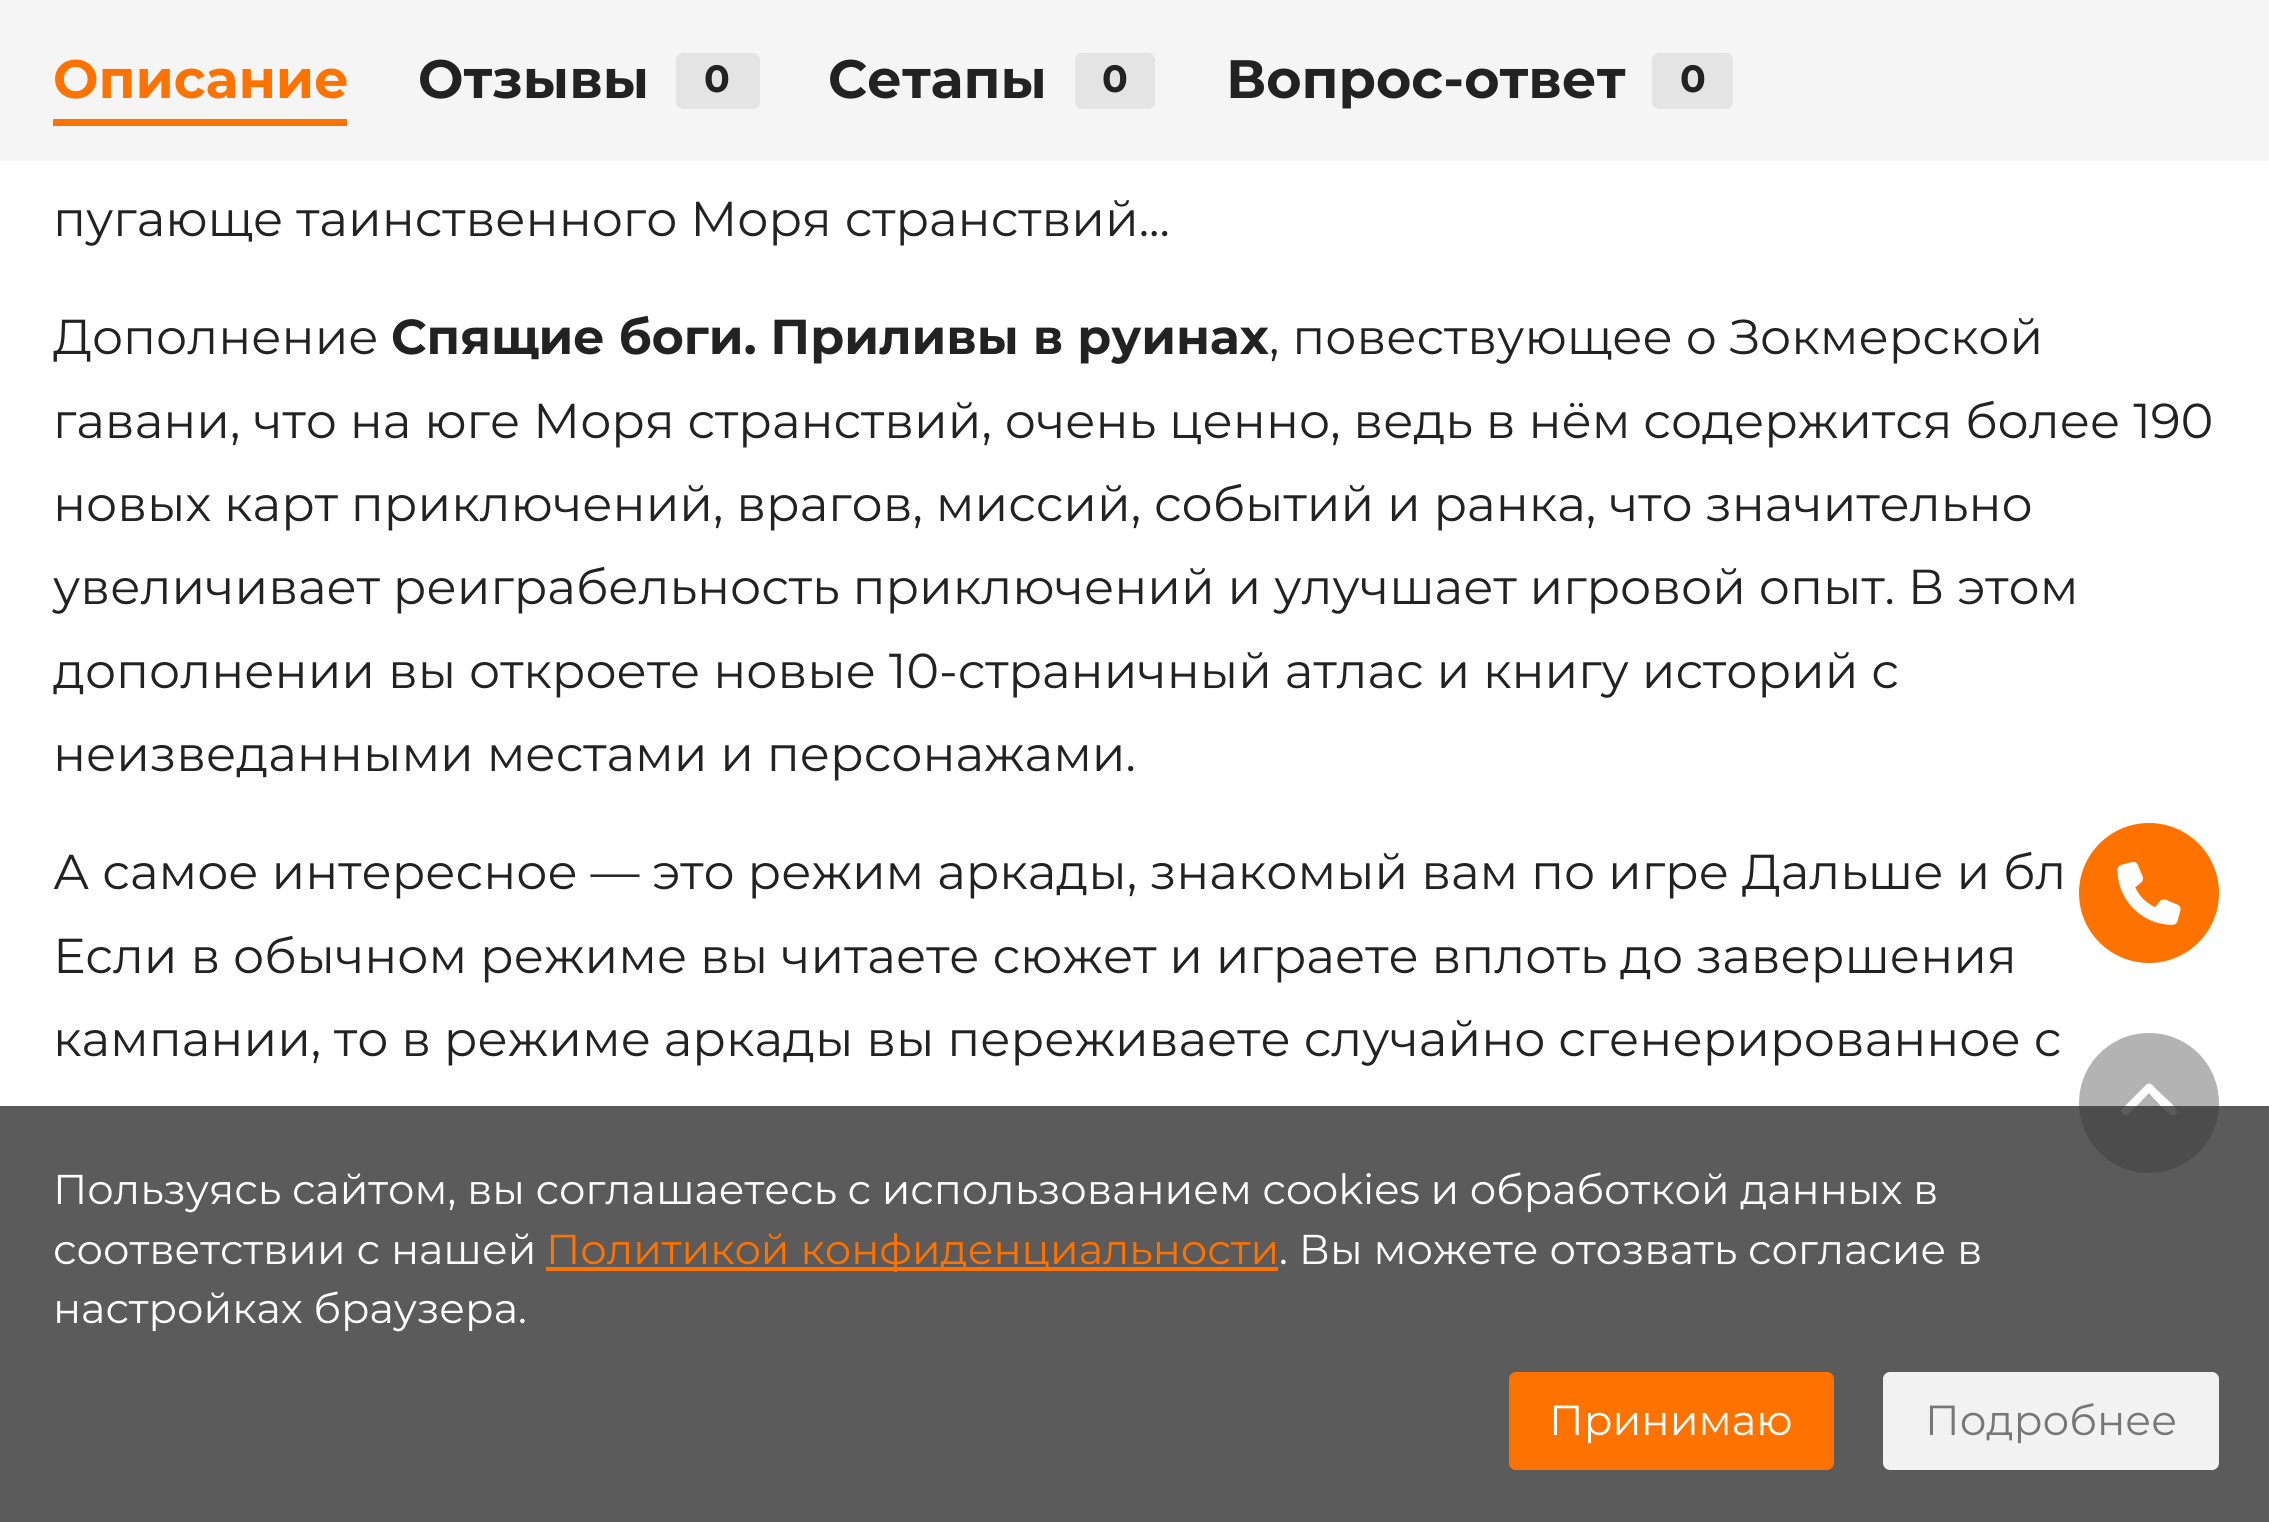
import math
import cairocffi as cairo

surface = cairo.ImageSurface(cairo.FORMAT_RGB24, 2269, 1522)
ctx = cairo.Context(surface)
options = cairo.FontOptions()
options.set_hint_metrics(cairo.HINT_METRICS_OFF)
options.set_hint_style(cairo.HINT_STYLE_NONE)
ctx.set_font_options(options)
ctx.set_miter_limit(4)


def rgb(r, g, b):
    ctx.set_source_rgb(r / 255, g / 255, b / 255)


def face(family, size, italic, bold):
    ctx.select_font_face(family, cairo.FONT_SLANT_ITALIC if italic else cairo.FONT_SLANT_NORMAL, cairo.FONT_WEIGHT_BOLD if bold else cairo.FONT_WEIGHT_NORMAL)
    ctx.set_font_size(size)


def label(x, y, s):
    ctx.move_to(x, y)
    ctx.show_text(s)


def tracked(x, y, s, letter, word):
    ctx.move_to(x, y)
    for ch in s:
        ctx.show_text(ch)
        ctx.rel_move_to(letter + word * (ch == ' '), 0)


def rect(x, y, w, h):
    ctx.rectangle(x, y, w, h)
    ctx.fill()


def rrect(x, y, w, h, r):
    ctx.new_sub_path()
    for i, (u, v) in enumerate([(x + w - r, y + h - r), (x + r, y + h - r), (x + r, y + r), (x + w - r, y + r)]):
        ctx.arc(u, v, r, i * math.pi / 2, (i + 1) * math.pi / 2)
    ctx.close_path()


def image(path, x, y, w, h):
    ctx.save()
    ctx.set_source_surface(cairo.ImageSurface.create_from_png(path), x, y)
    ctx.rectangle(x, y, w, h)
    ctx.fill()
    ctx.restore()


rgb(255, 255, 255)
ctx.paint()
rgb(245, 245, 245)
rect(0, 0, 2269, 161)
face('Montserrat', 54, 0, 1)
rgb(254, 114, 0)
label(53, 98, 'Описание')
rect(53, 119, 294, 7)
rgb(34, 34, 34)
label(418, 98, 'Отзывы')
rgb(228, 228, 228)
rrect(676, 53, 84, 56, 7)
ctx.fill()
face('Montserrat', 38, 0, 1)
rgb(34, 34, 34)
label(704, 92, '0')
face('Montserrat', 54, 0, 1)
label(828, 98, 'Сетапы')
rgb(228, 228, 228)
rrect(1075, 53, 80, 56, 7)
ctx.fill()
face('Montserrat', 38, 0, 1)
rgb(34, 34, 34)
label(1102, 92, '0')
face('Montserrat', 54, 0, 1)
label(1226, 98, 'Вопрос-ответ')
rgb(228, 228, 228)
rrect(1652, 53, 81, 56, 7)
ctx.fill()
face('Montserrat', 38, 0, 1)
rgb(34, 34, 34)
label(1680, 92, '0')
face('Montserrat', 49, 0, 0)
label(53, 236, 'пугающе таинственного Моря странствий...')
label(53, 354, 'Дополнение')
face('Montserrat', 49, 0, 1)
label(391, 354, 'Спящие боги. Приливы в руинах')
face('Montserrat', 49, 0, 0)
label(1269, 354, ', повествующее о Зокмерской')
label(53, 438, 'гавани, что на юге Моря странствий, очень ценно, ведь в нём содержится более 190')
label(53, 521, 'новых карт приключений, врагов, миссий, событий и ранка, что значительно')
label(53, 604, 'увеличивает реиграбельность приключений и улучшает игровой опыт. В этом')
label(53, 688, 'дополнении вы откроете новые 10-страничный атлас и книгу историй с')
label(53, 771, 'неизведанными местами и персонажами.')
label(53, 889, 'А самое интересное — это режим аркады, знакомый вам по игре Дальше и бл')
label(53, 973, 'Если в обычном режиме вы читаете сюжет и играете вплоть до завершения')
label(53, 1056, 'кампании, то в режиме аркады вы переживаете случайно сгенерированное с')
rgb(254, 114, 0)
ctx.new_path()
ctx.arc(2149, 893, 70, 0, 2 * math.pi)
ctx.fill()
image('image0.png', 2117, 861, 64, 64)
ctx.set_source_rgba(0, 0, 0, 0.3)
ctx.arc(2149, 1103, 70, 0, 2 * math.pi)
ctx.fill()
rgb(255, 255, 255)
ctx.new_path()
ctx.move_to(2146, 1085)
ctx.curve_to(2150, 1081, 2153, 1086, 2156, 1089)
ctx.line_to(2172, 1104)
ctx.curve_to(2174, 1107, 2179, 1110, 2176, 1114)
ctx.curve_to(2175, 1115, 2174, 1115, 2172, 1115)
ctx.curve_to(2169, 1115, 2152, 1097, 2149, 1093)
ctx.curve_to(2146, 1096, 2129, 1115, 2126, 1115)
ctx.curve_to(2122, 1116, 2120, 1111, 2123, 1108)
ctx.close_path()
ctx.fill()
ctx.set_source_rgba(0.2, 0.2, 0.2, 0.8)
rect(0, 1106, 2269, 416)
face('Montserrat', 41.65, 0, 0)
rgb(255, 255, 255)
tracked(53, 1204, 'Пользуясь сайтом, вы соглашаетесь с использованием cookies и обработкой данных в', 0, -0.25)
label(53, 1264, 'соответствии с нашей')
rgb(254, 114, 0)
rect(546, 1267, 732, 4)
label(546, 1264, 'Политикой конфиденциальности')
rgb(255, 255, 255)
label(1279, 1264, '. Вы можете отозвать согласие в')
label(53, 1323, 'настройках браузера.')
rgb(254, 114, 0)
rrect(1509, 1372, 325, 98, 7)
ctx.fill()
face('Montserrat', 42, 0, 0)
rgb(255, 255, 255)
label(1549, 1435, 'Принимаю')
rgb(242, 242, 242)
rrect(1883, 1372, 336, 98, 7)
ctx.fill()
rgb(119, 119, 119)
label(1925, 1435, 'Подробнее')
surface.write_to_png('render.png')
